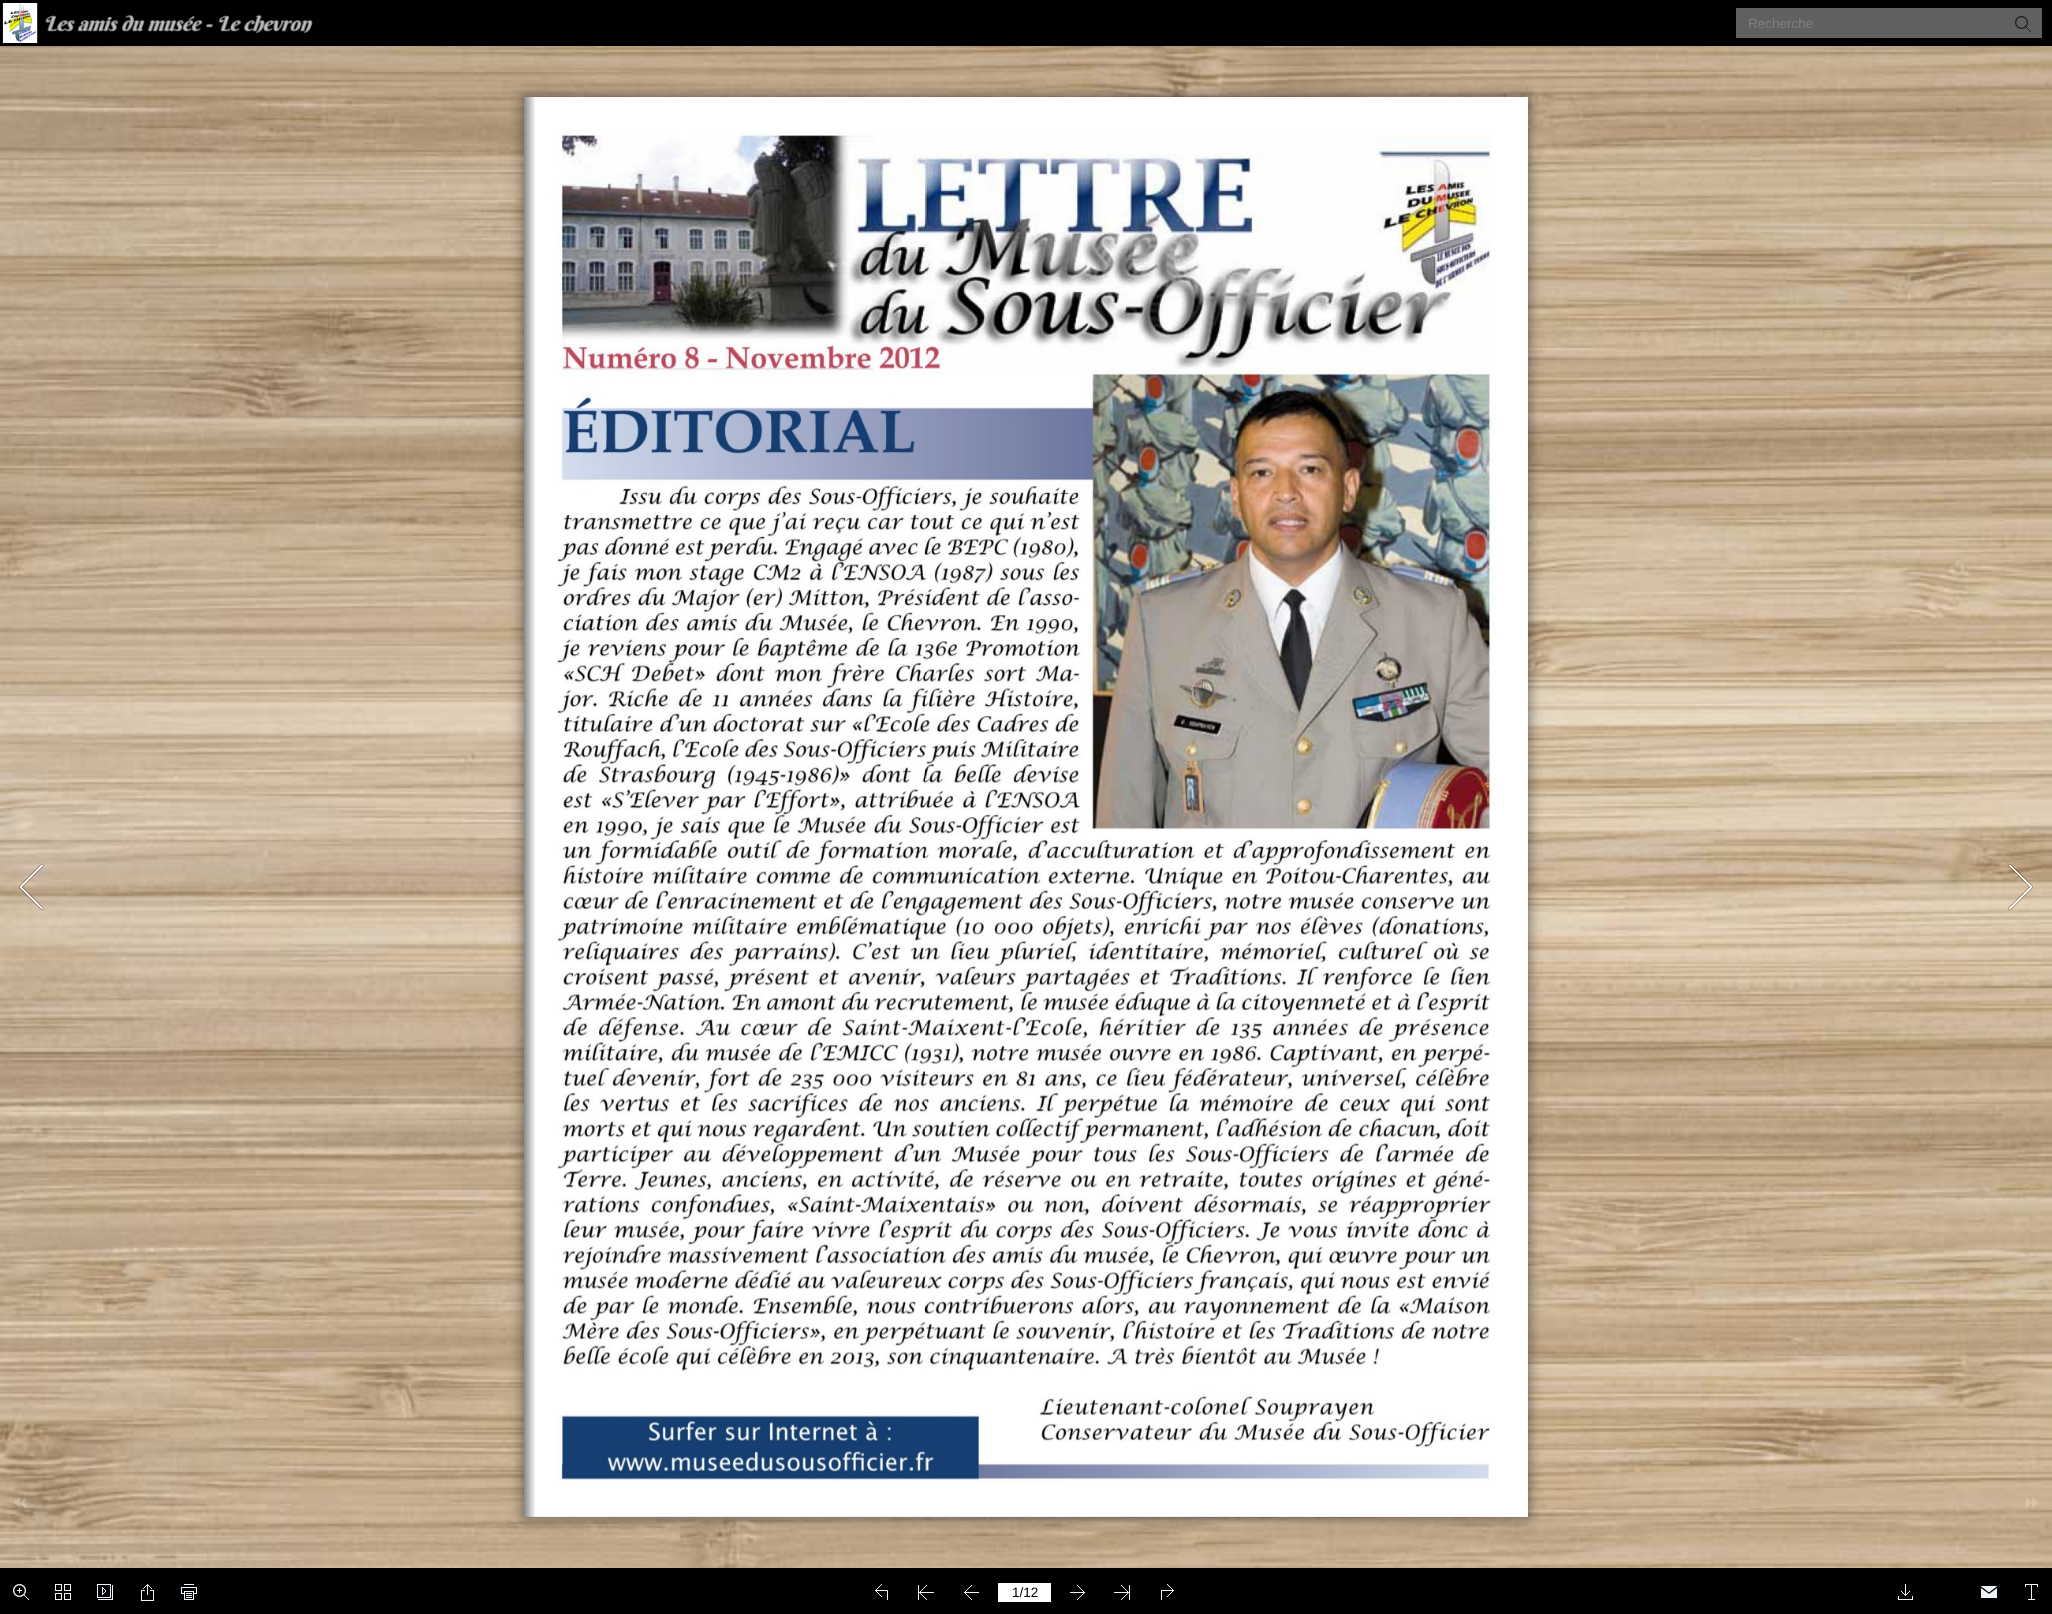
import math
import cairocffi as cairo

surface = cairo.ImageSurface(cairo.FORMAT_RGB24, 2052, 1614)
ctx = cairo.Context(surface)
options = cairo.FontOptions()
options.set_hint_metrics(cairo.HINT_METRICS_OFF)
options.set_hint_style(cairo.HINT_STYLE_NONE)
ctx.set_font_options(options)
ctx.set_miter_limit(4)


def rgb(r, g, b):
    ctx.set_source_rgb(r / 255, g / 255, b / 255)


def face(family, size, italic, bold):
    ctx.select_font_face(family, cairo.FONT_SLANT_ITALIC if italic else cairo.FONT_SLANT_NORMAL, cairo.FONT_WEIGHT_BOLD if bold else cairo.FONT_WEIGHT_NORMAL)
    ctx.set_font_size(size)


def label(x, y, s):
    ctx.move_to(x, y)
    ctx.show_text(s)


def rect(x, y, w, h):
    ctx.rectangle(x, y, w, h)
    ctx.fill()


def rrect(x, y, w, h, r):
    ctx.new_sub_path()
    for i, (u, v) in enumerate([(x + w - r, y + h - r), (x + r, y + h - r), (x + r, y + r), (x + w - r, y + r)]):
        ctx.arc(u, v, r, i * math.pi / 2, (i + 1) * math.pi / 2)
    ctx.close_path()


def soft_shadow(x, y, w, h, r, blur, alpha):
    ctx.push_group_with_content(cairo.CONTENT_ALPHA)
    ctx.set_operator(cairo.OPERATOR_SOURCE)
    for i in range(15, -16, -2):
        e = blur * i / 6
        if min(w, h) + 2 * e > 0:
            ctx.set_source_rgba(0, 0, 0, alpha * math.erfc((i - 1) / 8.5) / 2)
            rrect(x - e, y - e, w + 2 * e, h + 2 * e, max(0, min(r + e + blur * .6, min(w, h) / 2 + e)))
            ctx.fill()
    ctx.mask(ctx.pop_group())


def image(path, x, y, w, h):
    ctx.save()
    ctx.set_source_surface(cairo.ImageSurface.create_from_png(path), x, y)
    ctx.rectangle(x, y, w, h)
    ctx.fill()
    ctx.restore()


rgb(255, 255, 255)
ctx.paint()
rgb(0, 0, 0)
rect(0, 0, 2052, 46)
image('image0.png', 2, 3, 311, 40)
rgb(96, 96, 96)
rect(1736, 8, 306, 30)
face('Liberation Sans', 13.5, 0, 0)
rgb(128, 128, 128)
label(1748, 28, 'Recherche')
image('image1.png', 2015, 16, 16, 16)
image('image2.png', 0, 46, 2052, 1522)
image('image3.png', 19, 864, 25, 46)
rgb(40, 40, 40)
soft_shadow(524, 97, 1004, 1420, 0, 7.5, 0.7)
image('image5.png', 524, 1516, 1004, 1)
image('image6.png', 524, 1516, 1004, 1)
image('image4.png', 524, 97, 1004, 1420)
gradient = cairo.LinearGradient(524, 807, 536, 807)
gradient.add_color_stop_rgba(0, 0.078, 0.078, 0.078, 0.5)
gradient.add_color_stop_rgba(1, 0.078, 0.078, 0.078, 0)
ctx.set_source(gradient)
rect(524, 97, 11, 1420)
image('image7.png', 2008, 864, 25, 46)
image('image8.png', 14, 1497, 12, 11)
image('image9.png', 2026, 1497, 12, 11)
rgb(0, 0, 0)
rect(0, 1568, 2052, 46)
image('image10.png', 13, 1584, 16, 16)
image('image11.png', 55, 1584, 16, 16)
image('image12.png', 97, 1584, 16, 16)
image('image13.png', 141, 1584, 13, 17)
image('image14.png', 181, 1584, 16, 16)
image('image15.png', 875, 1584, 13, 16)
image('image16.png', 918, 1585, 16, 15)
image('image17.png', 964, 1585, 15, 15)
rgb(255, 255, 255)
rect(998, 1583, 53, 19)
rgb(0, 0, 0)
label(1012, 1597, '1/12')
image('image18.png', 1070, 1585, 15, 15)
image('image19.png', 1114, 1585, 16, 15)
image('image20.png', 1161, 1584, 13, 16)
image('image21.png', 1898, 1584, 15, 16)
image('image22.png', 1981, 1586, 16, 12)
image('image23.png', 2025, 1584, 13, 16)
surface.write_to_png('render.png')
